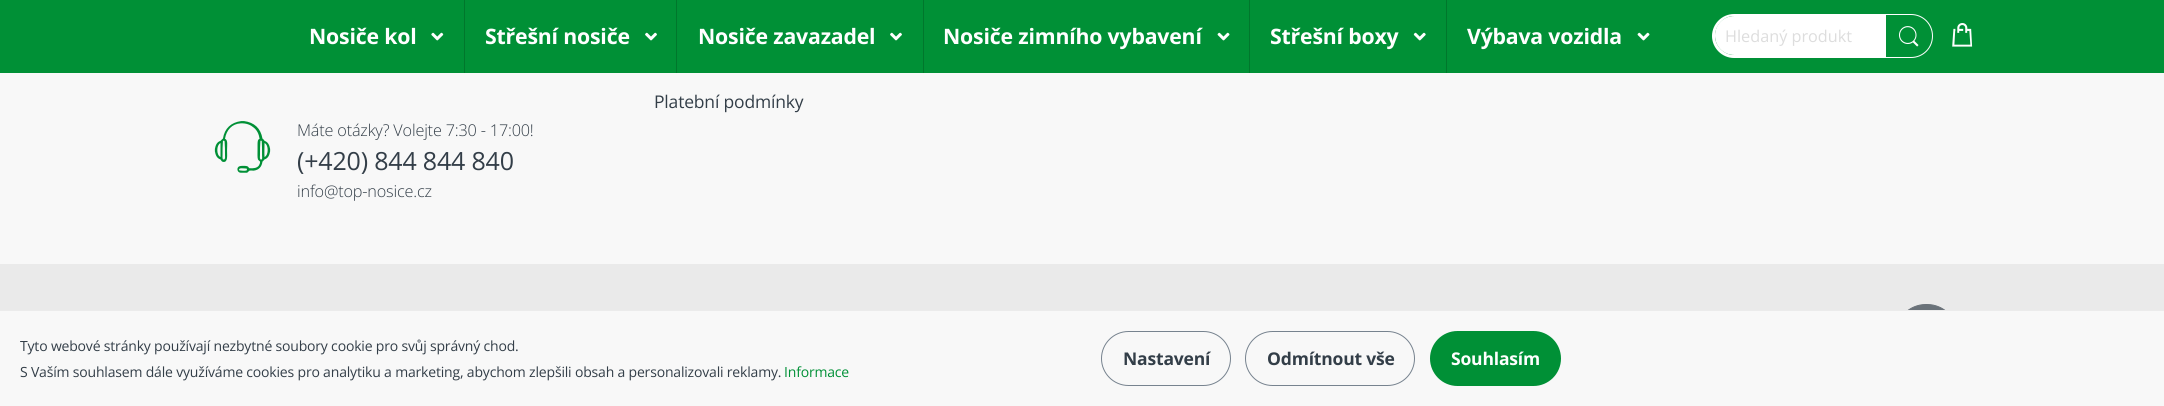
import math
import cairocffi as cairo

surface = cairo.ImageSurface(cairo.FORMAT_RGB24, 2164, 406)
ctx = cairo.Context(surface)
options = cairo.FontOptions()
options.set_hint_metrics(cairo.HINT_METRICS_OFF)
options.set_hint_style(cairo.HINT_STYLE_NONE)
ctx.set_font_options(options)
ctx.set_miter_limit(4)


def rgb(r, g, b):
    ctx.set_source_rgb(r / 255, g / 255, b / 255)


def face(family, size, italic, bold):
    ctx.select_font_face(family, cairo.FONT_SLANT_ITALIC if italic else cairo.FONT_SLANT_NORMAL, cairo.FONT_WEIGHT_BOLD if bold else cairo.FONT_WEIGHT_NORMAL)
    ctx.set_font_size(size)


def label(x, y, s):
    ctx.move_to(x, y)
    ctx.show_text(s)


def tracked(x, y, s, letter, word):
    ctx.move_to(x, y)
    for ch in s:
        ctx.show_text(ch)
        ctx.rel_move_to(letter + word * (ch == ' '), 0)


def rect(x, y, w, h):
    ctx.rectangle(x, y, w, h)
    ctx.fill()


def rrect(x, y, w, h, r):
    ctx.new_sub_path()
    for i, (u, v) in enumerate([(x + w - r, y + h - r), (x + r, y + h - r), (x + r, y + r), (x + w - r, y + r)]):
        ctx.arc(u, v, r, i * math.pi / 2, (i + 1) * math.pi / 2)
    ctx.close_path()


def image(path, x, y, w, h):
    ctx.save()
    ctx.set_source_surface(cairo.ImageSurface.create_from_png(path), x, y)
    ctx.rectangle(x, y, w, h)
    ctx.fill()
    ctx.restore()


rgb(248, 248, 248)
ctx.paint()
rgb(0, 144, 54)
rect(0, 0, 2164, 73)
face('Open Sans', 21.25, 0, 1)
rgb(255, 255, 255)
tracked(309, 44, 'Nosiče kol', -0.18, 0)
image('image0.png', 431, 32, 13, 9)
rgb(0, 119, 44)
rect(464, 0, 1, 73)
rgb(255, 255, 255)
tracked(485, 44, 'Střešní nosiče', -0.18, 0)
image('image1.png', 645, 32, 12, 9)
rgb(0, 119, 44)
rect(676, 0, 1, 73)
rgb(255, 255, 255)
tracked(698, 44, 'Nosiče zavazadel', -0.18, 0)
image('image1.png', 890, 32, 12, 9)
rgb(0, 119, 44)
rect(923, 0, 1, 73)
rgb(255, 255, 255)
tracked(943, 44, 'Nosiče zimního vybavení', -0.18, 0)
image('image2.png', 1217, 32, 13, 9)
rgb(0, 119, 44)
rect(1249, 0, 1, 73)
rgb(255, 255, 255)
tracked(1270, 44, 'Střešní boxy', -0.18, 0)
image('image3.png', 1413, 32, 13, 9)
rgb(0, 119, 44)
rect(1446, 0, 1, 73)
rgb(255, 255, 255)
tracked(1467, 44, 'Výbava vozidla', -0.18, 0)
image('image2.png', 1637, 32, 13, 9)
ctx.new_path()
ctx.move_to(1734.5, 16)
ctx.line_to(1886, 16)
ctx.line_to(1886, 55)
ctx.line_to(1734.5, 55)
ctx.curve_to(1723.5, 55, 1715, 46.5, 1715, 35.5)
ctx.curve_to(1715, 24.5, 1723.5, 16, 1734.5, 16)
ctx.close_path()
ctx.fill()
ctx.set_fill_rule(cairo.FILL_RULE_EVEN_ODD)
ctx.new_path()
ctx.move_to(1734, 14)
ctx.line_to(1886, 14)
ctx.line_to(1886, 58)
ctx.line_to(1734, 58)
ctx.curve_to(1722, 58, 1712, 48, 1712, 36)
ctx.curve_to(1712, 24, 1722, 14, 1734, 14)
ctx.close_path()
ctx.move_to(1734, 16)
ctx.line_to(1886, 16)
ctx.line_to(1886, 55)
ctx.line_to(1734, 55)
ctx.curve_to(1724, 55, 1715, 46, 1715, 36)
ctx.curve_to(1715, 25, 1724, 16, 1734, 16)
ctx.close_path()
ctx.fill()
face('Open Sans', 16.25, 0, 0)
rgb(221, 221, 221)
label(1725, 42, 'Hledaný produkt')
rgb(0, 144, 54)
ctx.new_path()
ctx.move_to(1885.5, 14.5)
ctx.line_to(1911, 14.5)
ctx.curve_to(1923, 14.5, 1932.5, 24, 1932.5, 36)
ctx.curve_to(1932.5, 48, 1923, 57.5, 1911, 57.5)
ctx.line_to(1885.5, 57.5)
ctx.close_path()
ctx.fill_preserve()
rgb(255, 255, 255)
ctx.set_line_width(1)
ctx.stroke()
image('image4.png', 1899, 26, 20, 21)
image('image5.png', 1952, 23, 21, 24)
face('Open Sans', 17.5, 0, 0)
rgb(51, 62, 72)
tracked(654, 108, 'Platební podmínky', -0.18, 0)
image('image6.png', 214, 121, 57, 52)
face('Open Sans Light', 16.25, 0, 0)
tracked(297, 136, 'Máte otázky? Volejte 7:30 - 17:00!', -0.18, 0)
face('Open Sans', 25, 0, 0)
tracked(297, 170, '(+420) 844 844 840', -0.18, 0)
face('Open Sans Light', 16.25, 0, 0)
tracked(297, 197, 'info@top-nosice.cz', -0.18, 0)
rgb(234, 234, 234)
rect(0, 264, 2164, 46)
rgb(106, 114, 121)
rrect(1895.5, 304.5, 62, 61, 30.5)
ctx.fill_preserve()
ctx.stroke()
rgb(248, 248, 248)
rect(1895, 311, 63, 55)
rgb(235, 235, 235)
rect(0, 310, 2164, 1)
face('Open Sans', 14, 0, 0)
rgb(51, 62, 72)
tracked(20, 351, 'Tyto webové stránky používají nezbytné soubory cookie pro svůj správný chod.', -0.18, 0)
tracked(20, 377, 'S Vaším souhlasem dále využíváme cookies pro analytiku a marketing, abychom zlepšili obsah a personalizovali reklamy.', -0.18, 0)
rgb(0, 144, 54)
tracked(784, 377, 'Informace', -0.18, 0)
rrect(1101.5, 331.5, 129, 54, 27)
rgb(119, 131, 143)
ctx.stroke()
face('Open Sans', 17.5, 0, 1)
rgb(51, 62, 72)
tracked(1123, 365, 'Nastavení', -0.18, 0)
rrect(1245.5, 331.5, 169, 54, 27)
rgb(119, 131, 143)
ctx.stroke()
rgb(51, 62, 72)
tracked(1267, 365, 'Odmítnout vše', -0.18, 0)
rgb(0, 144, 54)
rrect(1430, 331, 131, 55, 27.5)
ctx.fill()
rgb(255, 255, 255)
tracked(1451, 365, 'Souhlasím', -0.18, 0)
surface.write_to_png('render.png')
